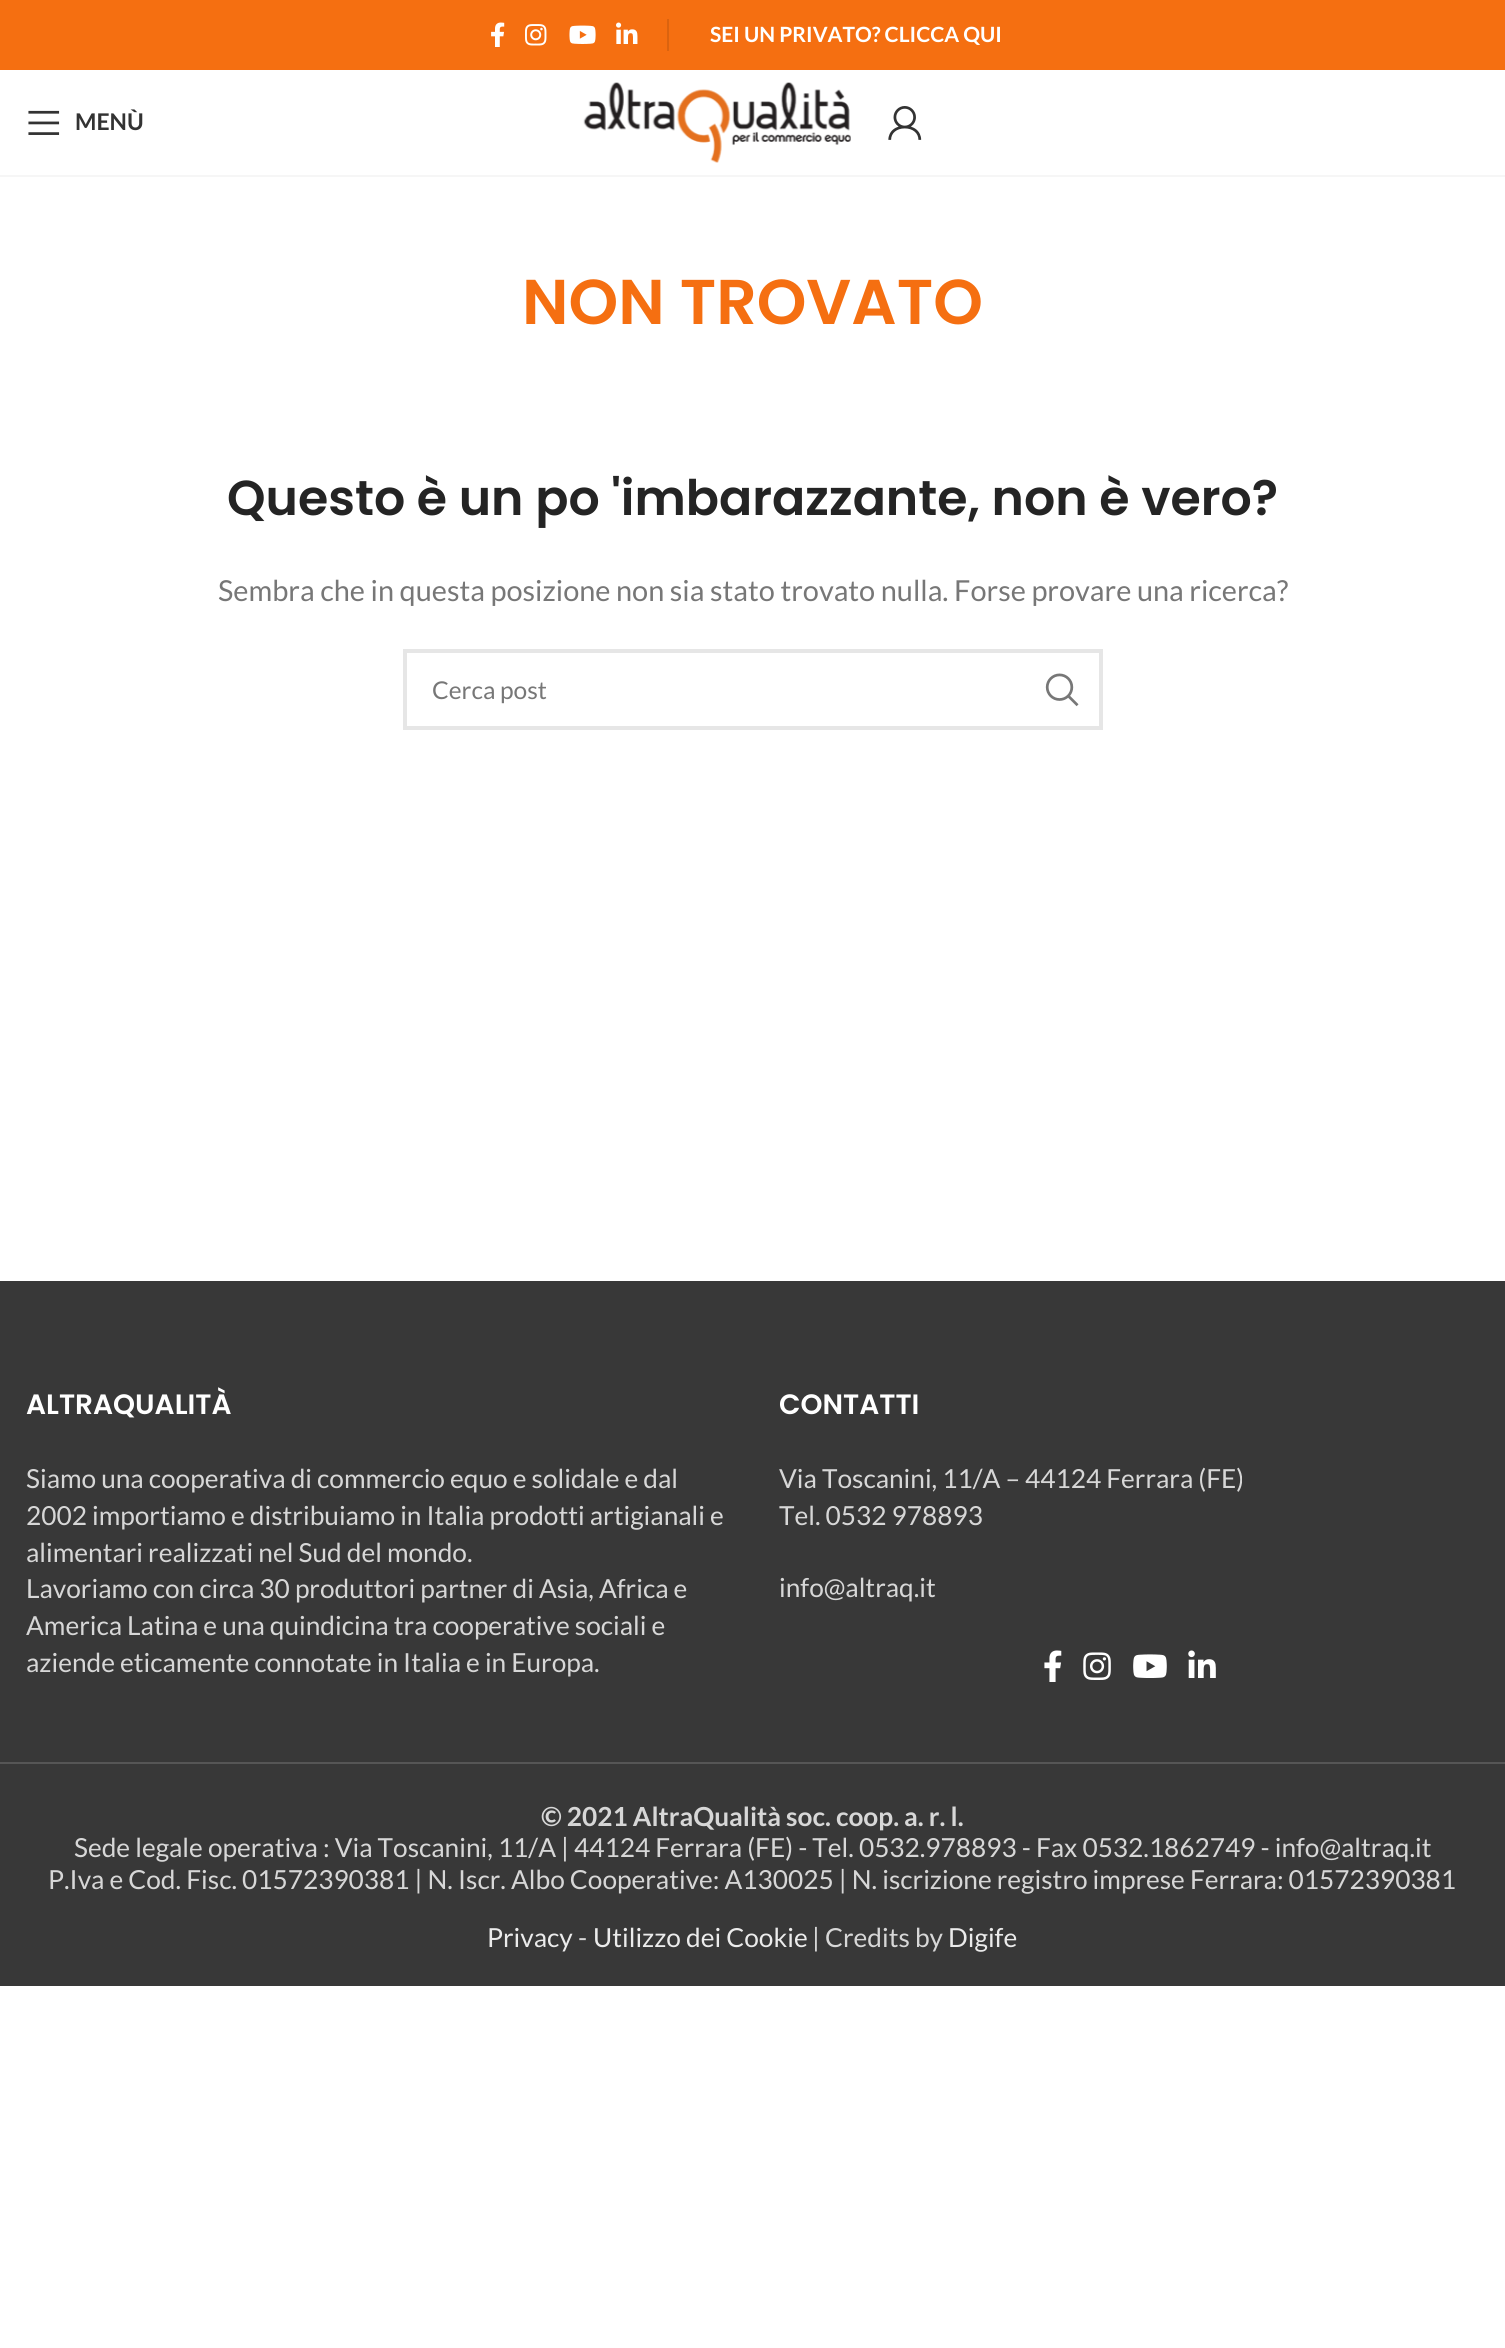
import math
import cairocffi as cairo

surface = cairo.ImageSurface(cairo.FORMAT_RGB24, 1505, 2348)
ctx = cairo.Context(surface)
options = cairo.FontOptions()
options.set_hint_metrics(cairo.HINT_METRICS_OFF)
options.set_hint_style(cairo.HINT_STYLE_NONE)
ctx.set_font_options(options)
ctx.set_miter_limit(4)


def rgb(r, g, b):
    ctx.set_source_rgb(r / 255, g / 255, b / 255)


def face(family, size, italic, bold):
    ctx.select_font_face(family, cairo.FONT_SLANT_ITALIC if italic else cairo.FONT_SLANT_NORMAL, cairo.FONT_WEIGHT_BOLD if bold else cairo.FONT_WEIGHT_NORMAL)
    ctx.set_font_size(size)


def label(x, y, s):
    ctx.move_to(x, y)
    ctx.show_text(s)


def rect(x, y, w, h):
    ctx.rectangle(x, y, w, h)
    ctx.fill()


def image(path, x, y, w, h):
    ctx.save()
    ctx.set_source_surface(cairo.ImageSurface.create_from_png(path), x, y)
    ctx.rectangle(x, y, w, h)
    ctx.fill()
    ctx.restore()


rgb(255, 255, 255)
ctx.paint()
rgb(245, 111, 17)
rect(0, 0, 1505, 70)
image('image0.png', 491, 22, 14, 25)
image('image1.png', 525, 24, 22, 22)
image('image2.png', 569, 25, 27, 19)
image('image3.png', 616, 22, 22, 22)
rgb(219, 99, 15)
rect(667, 19, 2, 32)
face('Lato', 21, 0, 1)
rgb(255, 255, 255)
label(710, 42, 'SEI UN PRIVATO? CLICCA QUI')
rgb(246, 246, 246)
rect(0, 175, 1505, 2)
image('image4.png', 28, 110, 32, 25)
face('Lato', 23, 0, 1)
rgb(51, 51, 51)
label(75, 130, 'MENÙ')
image('image5.png', 583, 82, 268, 81)
image('image6.png', 888, 106, 34, 34)
face('Poppins SemiBold', 63.25, 0, 0)
rgb(245, 111, 17)
label(522, 324, 'NON TROVATO')
face('Poppins SemiBold', 49, 0, 0)
rgb(36, 36, 36)
label(227, 515, 'Questo è un po \'imbarazzante, non è vero?')
face('Lato', 28.9, 0, 0)
rgb(119, 119, 119)
label(218, 601, 'Sembra che in questa posizione non sia stato trovato nulla. Forse provare una ricerca?')
ctx.rectangle(405, 651, 696, 77)
rgb(230, 230, 230)
ctx.set_line_width(4)
ctx.stroke()
face('Lato', 24.5, 0, 0)
rgb(119, 119, 119)
label(432, 699, 'Cerca post')
image('image7.png', 1045, 673, 34, 34)
rgb(56, 56, 56)
rect(0, 1281, 1505, 705)
face('Poppins SemiBold', 28, 0, 0)
rgb(255, 255, 255)
label(26, 1414, 'ALTRAQUALITÀ')
face('Lato', 26.25, 0, 0)
rgb(215, 215, 215)
label(26, 1488, 'Siamo una cooperativa di commercio equo e solidale e dal')
label(26, 1525, '2002 importiamo e distribuiamo in Italia prodotti artigianali e')
label(26, 1562, 'alimentari realizzati nel Sud del mondo.')
label(26, 1598, 'Lavoriamo con circa 30 produttori partner di Asia, Africa e')
label(26, 1635, 'America Latina e una quindicina tra cooperative sociali e')
label(26, 1672, 'aziende eticamente connotate in Italia e in Europa.')
face('Poppins SemiBold', 28, 0, 0)
rgb(255, 255, 255)
label(779, 1414, 'CONTATTI')
face('Lato', 26.25, 0, 0)
rgb(215, 215, 215)
label(779, 1488, 'Via Toscanini, 11/A – 44124 Ferrara (FE)')
label(779, 1525, 'Tel. 0532 978893')
label(779, 1597, 'info@altraq.it')
image('image8.png', 1044, 1650, 18, 32)
image('image9.png', 1083, 1652, 28, 28)
image('image10.png', 1133, 1654, 34, 24)
image('image11.png', 1188, 1650, 28, 28)
rgb(86, 86, 86)
rect(0, 1762, 1505, 2)
face('Lato', 26.25, 0, 1)
rgb(215, 215, 215)
label(541, 1826, '© 2021 AltraQualità soc. coop. a. r. l.')
face('Lato', 26.25, 0, 0)
label(74, 1857, 'Sede legale operativa : Via Toscanini, 11/A | 44124 Ferrara (FE) - Tel. 0532.978893 - Fax 0532.1862749 - info@altraq.it')
label(48, 1889, 'P.Iva e Cod. Fisc. 01572390381 | N. Iscr. Albo Cooperative: A130025 | N. iscrizione registro imprese Ferrara: 01572390381')
rgb(235, 235, 235)
label(487, 1947, 'Privacy')
rgb(215, 215, 215)
label(578, 1947, '-')
rgb(235, 235, 235)
label(593, 1947, 'Utilizzo dei Cookie')
rgb(215, 215, 215)
label(812, 1947, '| Credits by')
rgb(235, 235, 235)
label(948, 1947, 'Digife')
surface.write_to_png('render.png')
